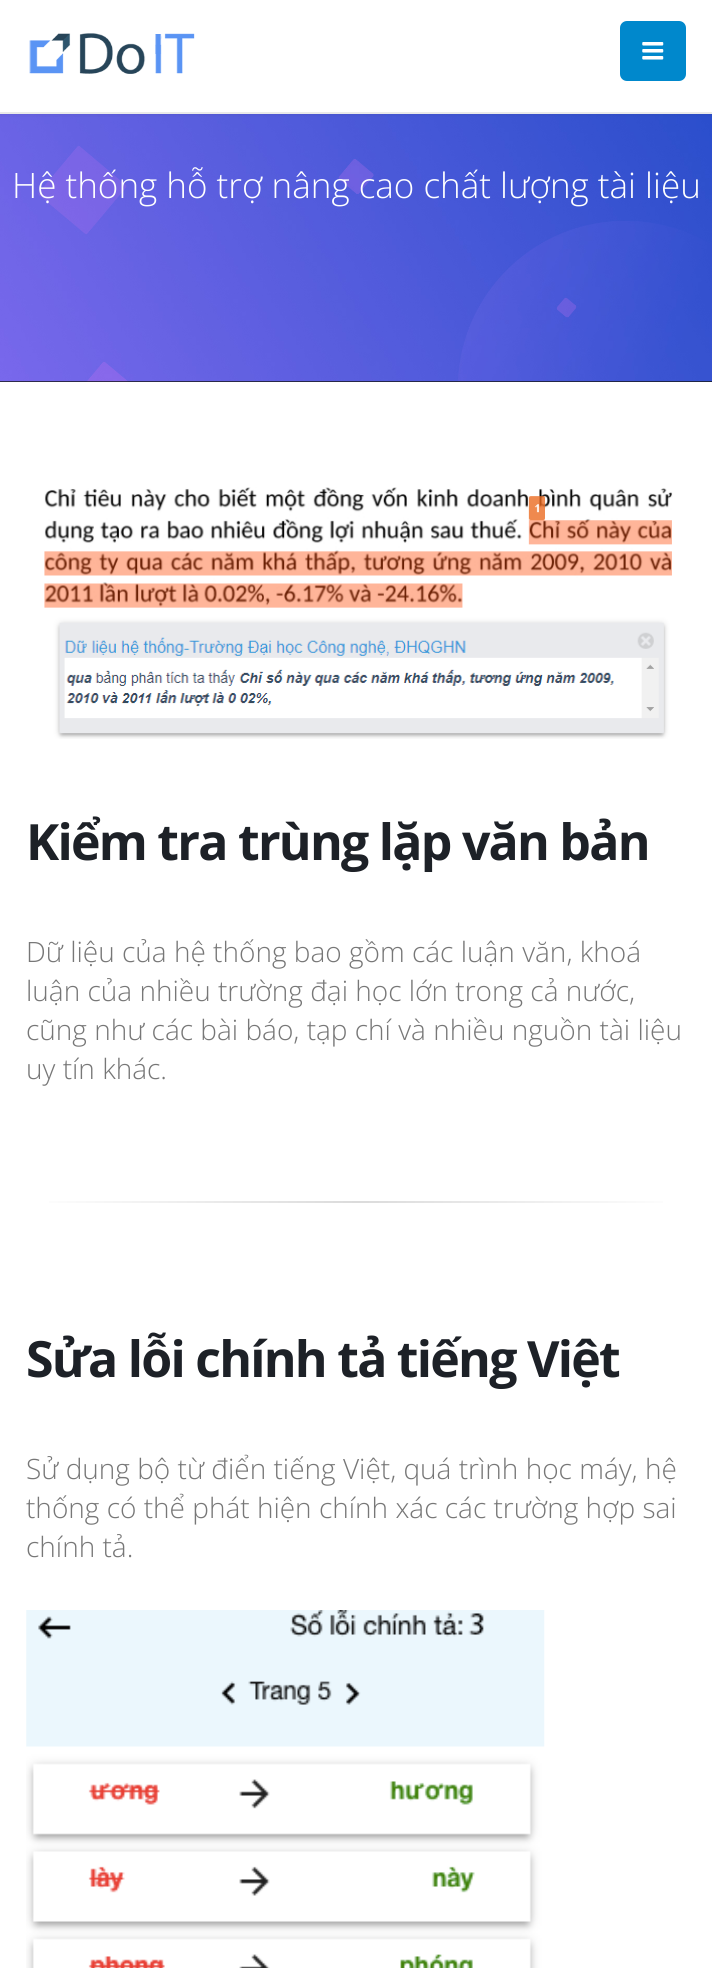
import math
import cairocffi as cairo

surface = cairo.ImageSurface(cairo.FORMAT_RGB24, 712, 1968)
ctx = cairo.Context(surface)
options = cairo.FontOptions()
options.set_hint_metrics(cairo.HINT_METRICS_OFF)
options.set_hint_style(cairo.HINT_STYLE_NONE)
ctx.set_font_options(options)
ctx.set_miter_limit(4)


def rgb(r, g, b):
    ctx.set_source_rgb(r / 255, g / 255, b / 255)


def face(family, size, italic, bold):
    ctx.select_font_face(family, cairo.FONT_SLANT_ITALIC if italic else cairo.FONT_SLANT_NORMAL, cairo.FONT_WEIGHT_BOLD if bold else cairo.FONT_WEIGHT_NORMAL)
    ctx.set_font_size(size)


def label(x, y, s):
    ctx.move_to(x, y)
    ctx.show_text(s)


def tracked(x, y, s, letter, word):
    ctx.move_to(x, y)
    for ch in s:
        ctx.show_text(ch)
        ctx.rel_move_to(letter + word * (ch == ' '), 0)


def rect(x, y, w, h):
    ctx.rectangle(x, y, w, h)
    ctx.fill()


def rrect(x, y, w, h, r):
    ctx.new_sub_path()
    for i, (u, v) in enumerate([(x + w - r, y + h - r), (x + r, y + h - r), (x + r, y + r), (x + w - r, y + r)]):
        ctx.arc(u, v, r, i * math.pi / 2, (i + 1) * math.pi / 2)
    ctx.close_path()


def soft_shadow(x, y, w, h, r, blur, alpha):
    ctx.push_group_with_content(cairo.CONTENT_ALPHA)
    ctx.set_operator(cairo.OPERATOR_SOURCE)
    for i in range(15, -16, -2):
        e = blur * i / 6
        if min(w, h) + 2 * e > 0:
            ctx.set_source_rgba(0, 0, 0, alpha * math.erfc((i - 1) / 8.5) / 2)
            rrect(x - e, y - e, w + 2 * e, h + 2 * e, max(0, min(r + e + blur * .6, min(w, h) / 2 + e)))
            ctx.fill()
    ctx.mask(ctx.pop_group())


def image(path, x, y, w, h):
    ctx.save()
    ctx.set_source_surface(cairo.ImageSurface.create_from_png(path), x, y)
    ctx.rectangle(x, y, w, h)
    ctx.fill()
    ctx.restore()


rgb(255, 255, 255)
ctx.paint()
rgb(23, 23, 23)
rect(0, 381, 712, 1)
image('image2.png', 0, 114, 712, 268)
rgb(0, 0, 0)
soft_shadow(0, 0, 712, 114, 0, 2.5, 0.1)
rgb(255, 255, 255)
rect(0, 0, 712, 112)
rgb(233, 233, 233)
rect(0, 112, 712, 2)
image('image0.png', 29, 33, 166, 41)
rgb(0, 136, 204)
rrect(620, 21, 66, 60, 7)
ctx.fill()
image('image1.png', 642, 42, 22, 18)
face('Open Sans Light', 35, 0, 0)
rgb(255, 255, 255)
label(12, 198, 'Hệ thống hỗ trợ nâng cao chất lượng tài liệu')
image('image3.png', 44, 487, 629, 252)
face('Open Sans', 50, 0, 1)
rgb(29, 33, 39)
tracked(26, 860, 'Kiểm tra trùng lặp văn bản', -1.75, 0)
face('Open Sans Light', 28, 0, 0)
rgb(119, 119, 119)
label(26, 962, 'Dữ liệu của hệ thống bao gồm các luận văn, khoá')
label(26, 1001, 'luận của nhiều trường đại học lớn trong cả nước,')
label(26, 1040, 'cũng như các bài báo, tạp chí và nhiều nguồn tài liệu')
label(26, 1079, 'uy tín khác.')
gradient = cairo.LinearGradient(26, 1201, 686, 1201)
gradient.add_color_stop_rgba(0, 1, 1, 1, 1)
gradient.add_color_stop_rgba(0.5, 0.859, 0.859, 0.859, 1)
gradient.add_color_stop_rgba(1, 1, 1, 1, 1)
ctx.set_source(gradient)
rect(49, 1201, 614, 2)
face('Open Sans', 50, 0, 1)
rgb(29, 33, 39)
tracked(26, 1377, 'Sửa lỗi chính tả tiếng Việt', -1.75, 0)
face('Open Sans Light', 28, 0, 0)
rgb(119, 119, 119)
label(26, 1479, 'Sử dụng bộ từ điển tiếng Việt, quá trình học máy, hệ')
label(26, 1518, 'thống có thể phát hiện chính xác các trường hợp sai')
label(26, 1557, 'chính tả.')
image('image4.png', 26, 1610, 519, 358)
surface.write_to_png('render.png')
